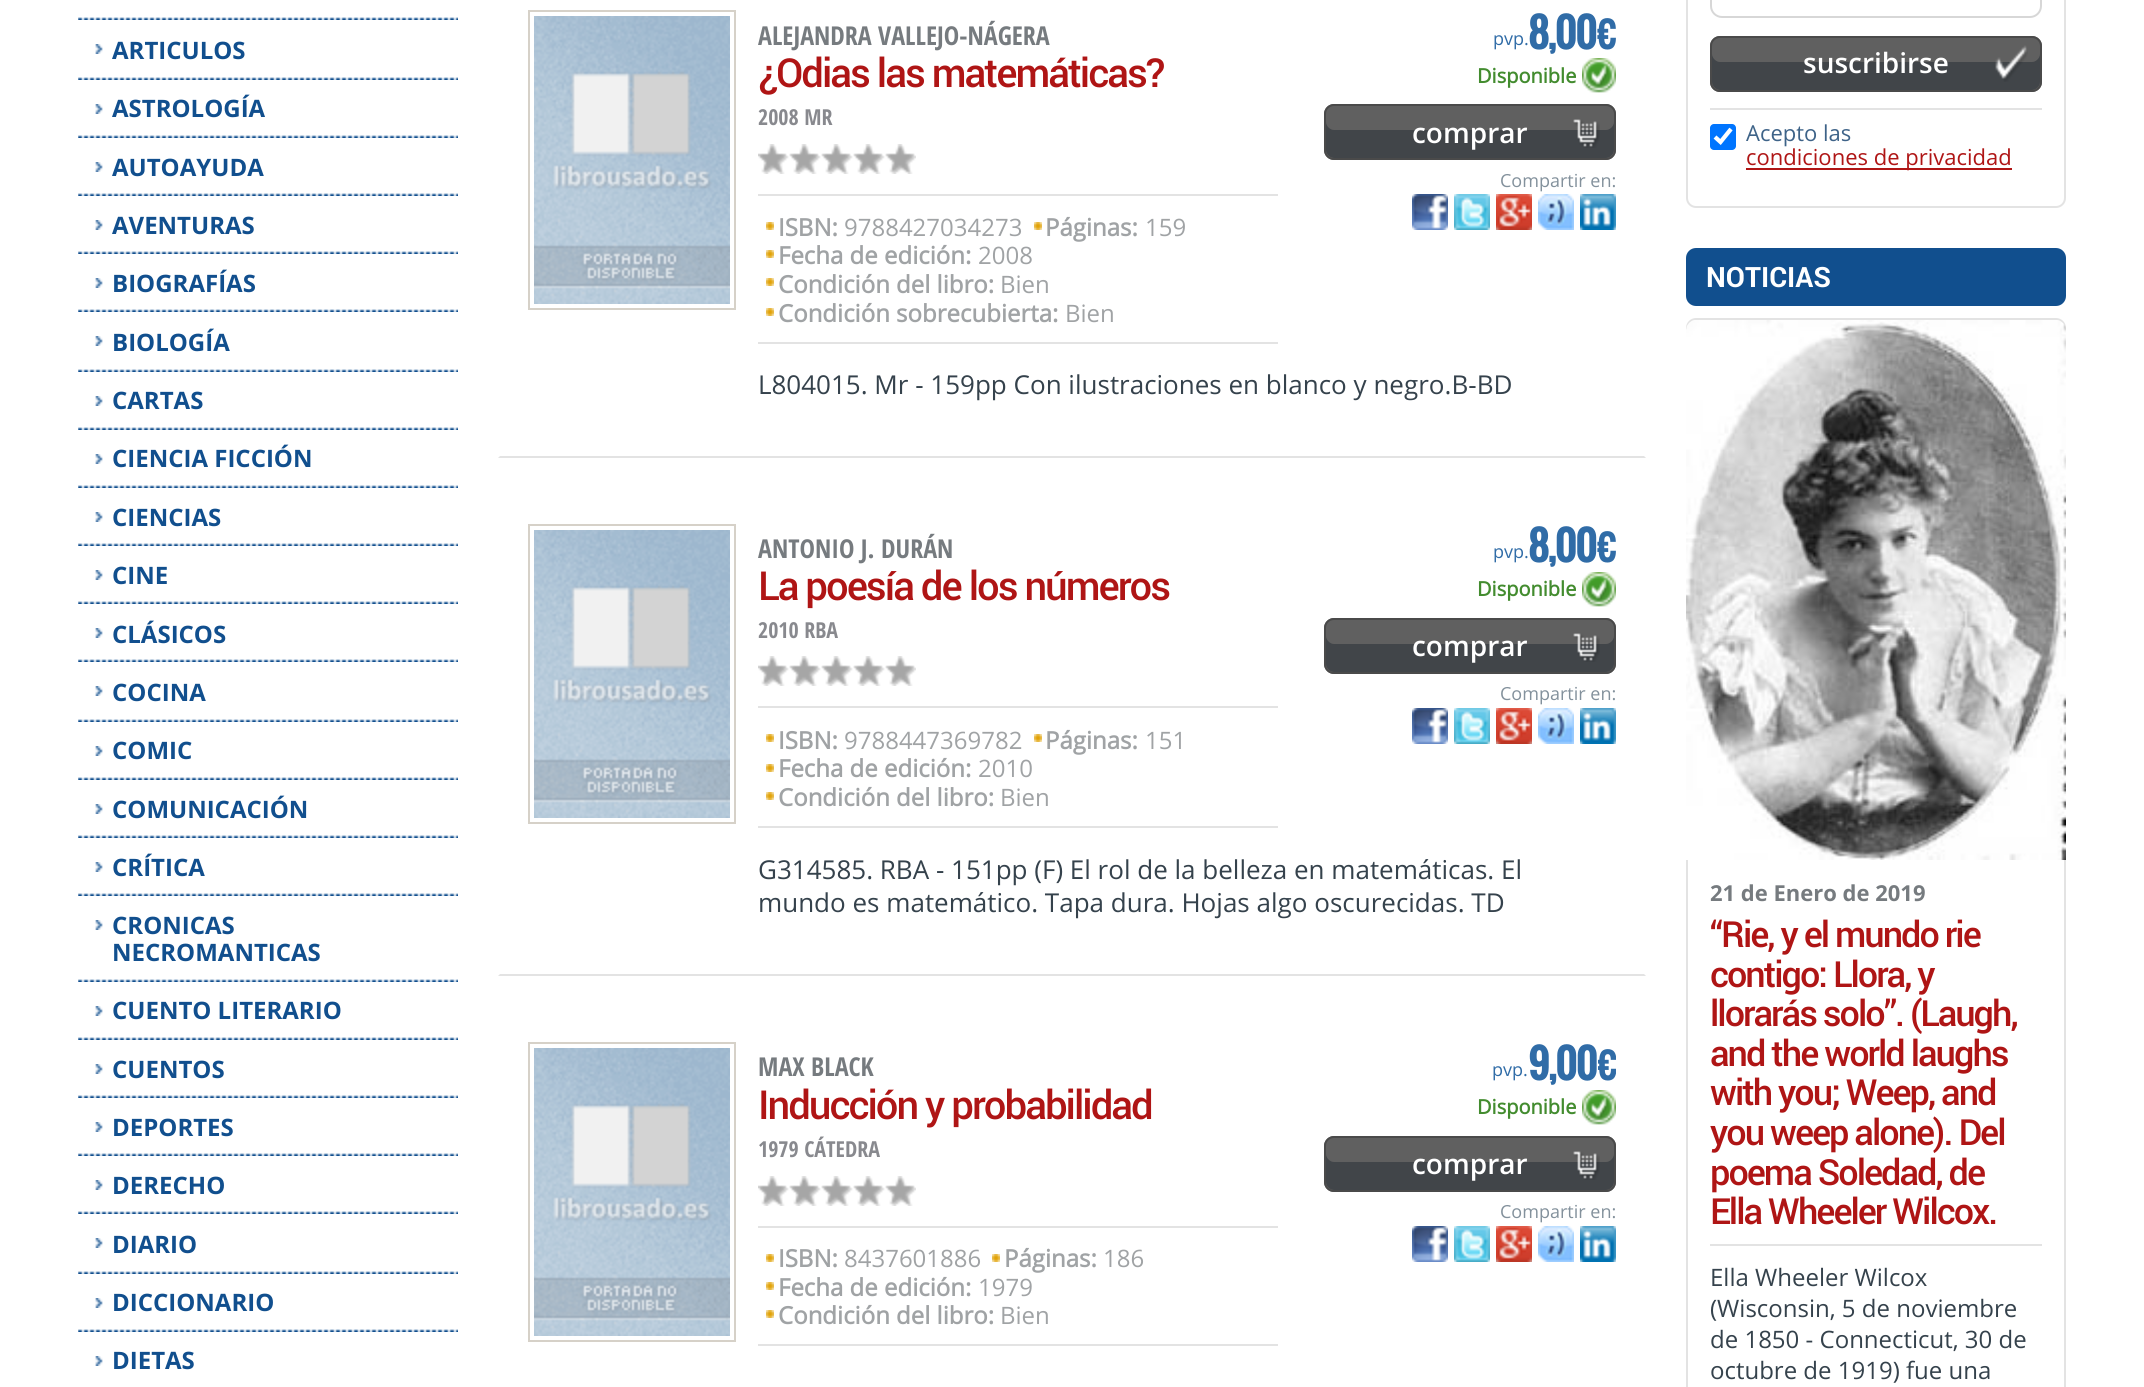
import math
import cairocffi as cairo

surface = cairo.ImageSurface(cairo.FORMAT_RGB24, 2144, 1387)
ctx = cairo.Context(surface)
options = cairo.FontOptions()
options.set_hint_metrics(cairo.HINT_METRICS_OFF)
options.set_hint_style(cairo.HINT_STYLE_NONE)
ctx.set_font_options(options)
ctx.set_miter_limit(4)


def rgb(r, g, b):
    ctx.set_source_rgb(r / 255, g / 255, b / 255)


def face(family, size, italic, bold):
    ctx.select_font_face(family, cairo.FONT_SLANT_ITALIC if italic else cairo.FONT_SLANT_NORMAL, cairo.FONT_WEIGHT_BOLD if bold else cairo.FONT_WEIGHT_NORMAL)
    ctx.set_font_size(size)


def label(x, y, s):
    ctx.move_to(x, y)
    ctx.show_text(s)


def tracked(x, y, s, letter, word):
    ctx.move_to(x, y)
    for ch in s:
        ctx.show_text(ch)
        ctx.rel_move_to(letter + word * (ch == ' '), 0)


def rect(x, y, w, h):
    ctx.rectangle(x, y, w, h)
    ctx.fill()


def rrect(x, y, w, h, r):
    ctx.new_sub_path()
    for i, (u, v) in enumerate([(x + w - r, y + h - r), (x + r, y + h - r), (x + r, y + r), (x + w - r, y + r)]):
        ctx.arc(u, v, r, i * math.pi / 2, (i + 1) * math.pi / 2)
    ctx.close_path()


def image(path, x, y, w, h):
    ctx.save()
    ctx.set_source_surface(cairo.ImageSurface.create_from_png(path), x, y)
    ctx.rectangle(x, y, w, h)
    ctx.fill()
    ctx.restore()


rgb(255, 255, 255)
ctx.paint()
image('image0.png', 78, 17, 380, 3)
image('image0.png', 78, 77, 380, 3)
image('image1.png', 95, 44, 8, 10)
face('Open Sans', 24, 0, 1)
rgb(17, 79, 142)
label(112, 59, 'ARTICULOS')
image('image0.png', 78, 135, 380, 3)
image('image1.png', 95, 104, 8, 10)
label(112, 117, 'ASTROLOGÍA')
image('image0.png', 78, 193, 380, 3)
image('image1.png', 95, 162, 8, 10)
label(112, 176, 'AUTOAYUDA')
image('image0.png', 78, 251, 380, 3)
image('image1.png', 95, 220, 8, 10)
label(112, 234, 'AVENTURAS')
image('image0.png', 78, 309, 380, 3)
image('image1.png', 95, 278, 8, 10)
label(112, 292, 'BIOGRAFÍAS')
image('image0.png', 78, 369, 380, 3)
image('image1.png', 95, 336, 8, 10)
label(112, 351, 'BIOLOGÍA')
image('image0.png', 78, 427, 380, 3)
image('image1.png', 95, 396, 8, 10)
label(112, 409, 'CARTAS')
image('image0.png', 78, 485, 380, 3)
image('image1.png', 95, 454, 8, 10)
label(112, 467, 'CIENCIA FICCIÓN')
image('image0.png', 78, 543, 380, 3)
image('image1.png', 95, 512, 8, 10)
label(112, 526, 'CIENCIAS')
image('image0.png', 78, 601, 380, 3)
image('image1.png', 95, 570, 8, 10)
label(112, 584, 'CINE')
image('image0.png', 78, 659, 380, 3)
image('image1.png', 95, 628, 8, 10)
label(112, 643, 'CLÁSICOS')
image('image0.png', 78, 719, 380, 3)
image('image1.png', 95, 686, 8, 10)
label(112, 701, 'COCINA')
image('image0.png', 78, 777, 380, 3)
image('image1.png', 95, 746, 8, 10)
label(112, 759, 'COMIC')
image('image0.png', 78, 835, 380, 3)
image('image1.png', 95, 804, 8, 10)
label(112, 818, 'COMUNICACIÓN')
image('image0.png', 78, 893, 380, 3)
image('image1.png', 95, 862, 8, 10)
label(112, 876, 'CRÍTICA')
image('image0.png', 78, 979, 380, 3)
image('image1.png', 95, 920, 8, 10)
label(112, 934, 'CRONICAS')
label(112, 961, 'NECROMANTICAS')
image('image0.png', 78, 1037, 380, 3)
image('image1.png', 95, 1006, 8, 10)
label(112, 1019, 'CUENTO LITERARIO')
image('image0.png', 78, 1095, 380, 3)
image('image1.png', 95, 1064, 8, 10)
label(112, 1078, 'CUENTOS')
image('image0.png', 78, 1153, 380, 3)
image('image1.png', 95, 1122, 8, 10)
label(112, 1136, 'DEPORTES')
image('image0.png', 78, 1211, 380, 3)
image('image1.png', 95, 1180, 8, 10)
label(112, 1194, 'DERECHO')
image('image0.png', 78, 1271, 380, 3)
image('image1.png', 95, 1238, 8, 10)
label(112, 1253, 'DIARIO')
image('image0.png', 78, 1329, 380, 3)
image('image1.png', 95, 1298, 8, 10)
label(112, 1311, 'DICCIONARIO')
image('image1.png', 95, 1356, 8, 10)
label(112, 1369, 'DIETAS')
rgb(227, 227, 227)
ctx.new_path()
ctx.move_to(1646, 458)
ctx.line_to(498, 458)
ctx.line_to(500, 456)
ctx.line_to(1644, 456)
ctx.close_path()
ctx.fill()
ctx.rectangle(529, 11, 206, 298)
rgb(214, 209, 200)
ctx.stroke()
image('image2.png', 534, 16, 196, 288)
face('Open Sans Condensed', 26, 0, 1)
rgb(118, 123, 127)
label(758, 45, 'ALEJANDRA VALLEJO-NÁGERA')
face('Roboto Medium', 40, 0, 0)
rgb(175, 21, 21)
tracked(758, 87, '¿Odias las matemáticas?', -2, 0)
face('Open Sans Condensed', 22, 0, 1)
rgb(136, 137, 142)
label(758, 125, '2008 MR')
image('image3.png', 758, 144, 158, 30)
rgb(227, 227, 227)
rect(758, 194, 520, 2)
rect(758, 342, 520, 2)
image('image4.png', 766, 222, 8, 8)
face('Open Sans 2', 24, 0, 1)
rgb(160, 163, 165)
label(778, 236, 'ISBN:')
face('Open Sans', 24, 0, 0)
label(844, 236, '9788427034273')
image('image4.png', 1034, 222, 8, 8)
face('Open Sans 2', 24, 0, 1)
label(1045, 236, 'Páginas:')
face('Open Sans', 24, 0, 0)
label(1145, 236, '159')
image('image4.png', 766, 250, 8, 8)
face('Open Sans 2', 24, 0, 1)
label(778, 264, 'Fecha de edición:')
face('Open Sans', 24, 0, 0)
label(978, 264, '2008')
image('image4.png', 766, 278, 8, 8)
face('Open Sans 2', 24, 0, 1)
label(778, 293, 'Condición del libro:')
face('Open Sans', 24, 0, 0)
label(1000, 293, 'Bien')
image('image4.png', 766, 308, 8, 8)
face('Open Sans 2', 24, 0, 1)
label(778, 322, 'Condición sobrecubierta:')
face('Open Sans', 24, 0, 0)
label(1065, 322, 'Bien')
face('Open Sans', 18, 0, 0)
rgb(48, 108, 167)
label(1493, 45, 'pvp.')
ctx.save()
ctx.rectangle(1318, 10, 298, 44)
ctx.clip()
face('Oswald', 40, 0, 1)
tracked(1528, 49, '8,00 €', -2, -2)
ctx.restore()
image('image5.png', 1582, 58, 34, 35)
face('Open Sans 2', 20, 0, 1)
rgb(67, 140, 47)
label(1477, 83, 'Disponible')
rgb(96, 96, 96)
rrect(1324, 104, 292, 56, 10)
ctx.fill()
rgb(65, 69, 73)
ctx.new_path()
ctx.move_to(1326, 122)
ctx.line_to(1326, 150)
ctx.curve_to(1326, 154, 1330, 158, 1334, 158)
ctx.line_to(1606, 158)
ctx.curve_to(1610, 158, 1614, 154, 1614, 150)
ctx.line_to(1614, 122)
ctx.curve_to(1614, 126, 1610, 130, 1606, 130)
ctx.line_to(1334, 130)
ctx.curve_to(1330, 130, 1326, 126, 1326, 122)
ctx.close_path()
ctx.fill()
rrect(1325, 105, 290, 54, 9)
rgb(74, 74, 74)
ctx.stroke()
image('image6.png', 1573, 119, 27, 29)
face('Open Sans SemiBold', 28, 0, 0)
rgb(255, 255, 255)
label(1412, 143, 'comprar')
face('Open Sans', 18, 0, 0)
rgb(131, 145, 156)
label(1500, 187, 'Compartir en:')
image('image7.png', 1412, 194, 36, 36)
image('image8.png', 1454, 194, 36, 36)
image('image9.png', 1496, 194, 36, 36)
image('image10.png', 1538, 194, 36, 36)
image('image11.png', 1580, 194, 36, 36)
face('Open Sans', 26, 0, 0)
rgb(53, 66, 76)
label(758, 394, 'L804015. Mr - 159pp Con ilustraciones en blanco y negro.B-BD')
rgb(227, 227, 227)
ctx.new_path()
ctx.move_to(1646, 976)
ctx.line_to(498, 976)
ctx.line_to(500, 974)
ctx.line_to(1644, 974)
ctx.close_path()
ctx.fill()
ctx.rectangle(529, 525, 206, 298)
rgb(214, 209, 200)
ctx.stroke()
image('image2.png', 534, 530, 196, 288)
face('Open Sans Condensed', 26, 0, 1)
rgb(118, 123, 127)
label(758, 558, 'ANTONIO J. DURÁN')
face('Roboto Medium', 40, 0, 0)
rgb(175, 21, 21)
tracked(758, 600, 'La poesía de los números', -2, 0)
face('Open Sans Condensed', 22, 0, 1)
rgb(136, 137, 142)
label(758, 638, '2010 RBA')
image('image3.png', 758, 656, 158, 30)
rgb(227, 227, 227)
rect(758, 706, 520, 2)
rect(758, 826, 520, 2)
image('image4.png', 766, 734, 8, 8)
face('Open Sans 2', 24, 0, 1)
rgb(160, 163, 165)
label(778, 749, 'ISBN:')
face('Open Sans', 24, 0, 0)
label(844, 749, '9788447369782')
image('image4.png', 1034, 734, 8, 8)
face('Open Sans 2', 24, 0, 1)
label(1045, 749, 'Páginas:')
face('Open Sans', 24, 0, 0)
label(1145, 749, '151')
image('image4.png', 766, 764, 8, 8)
face('Open Sans 2', 24, 0, 1)
label(778, 777, 'Fecha de edición:')
face('Open Sans', 24, 0, 0)
label(978, 777, '2010')
image('image4.png', 766, 792, 8, 8)
face('Open Sans 2', 24, 0, 1)
label(778, 806, 'Condición del libro:')
face('Open Sans', 24, 0, 0)
label(1000, 806, 'Bien')
face('Open Sans', 18, 0, 0)
rgb(48, 108, 167)
label(1493, 558, 'pvp.')
ctx.save()
ctx.rectangle(1318, 524, 298, 44)
ctx.clip()
face('Oswald', 40, 0, 1)
tracked(1528, 562, '8,00 €', -2, -2)
ctx.restore()
image('image5.png', 1582, 572, 34, 35)
face('Open Sans 2', 20, 0, 1)
rgb(67, 140, 47)
label(1477, 596, 'Disponible')
rgb(96, 96, 96)
rrect(1324, 618, 292, 56, 10)
ctx.fill()
rgb(65, 69, 73)
ctx.new_path()
ctx.move_to(1326, 636)
ctx.line_to(1326, 664)
ctx.curve_to(1326, 668, 1330, 672, 1334, 672)
ctx.line_to(1606, 672)
ctx.curve_to(1610, 672, 1614, 668, 1614, 664)
ctx.line_to(1614, 636)
ctx.curve_to(1614, 640, 1610, 644, 1606, 644)
ctx.line_to(1334, 644)
ctx.curve_to(1330, 644, 1326, 640, 1326, 636)
ctx.close_path()
ctx.fill()
rrect(1325, 619, 290, 54, 9)
rgb(74, 74, 74)
ctx.stroke()
image('image6.png', 1573, 633, 27, 29)
face('Open Sans SemiBold', 28, 0, 0)
rgb(255, 255, 255)
label(1412, 656, 'comprar')
face('Open Sans', 18, 0, 0)
rgb(131, 145, 156)
label(1500, 700, 'Compartir en:')
image('image7.png', 1412, 708, 36, 36)
image('image8.png', 1454, 708, 36, 36)
image('image9.png', 1496, 708, 36, 36)
image('image10.png', 1538, 708, 36, 36)
image('image11.png', 1580, 708, 36, 36)
face('Open Sans', 26, 0, 0)
rgb(53, 66, 76)
label(758, 879, 'G314585. RBA - 151pp (F) El rol de la belleza en matemáticas. El')
label(758, 912, 'mundo es matemático. Tapa dura. Hojas algo oscurecidas. TD')
ctx.rectangle(529, 1043, 206, 298)
rgb(214, 209, 200)
ctx.stroke()
image('image2.png', 534, 1048, 196, 288)
face('Open Sans Condensed', 26, 0, 1)
rgb(118, 123, 127)
label(758, 1076, 'MAX BLACK')
face('Roboto Medium', 40, 0, 0)
rgb(175, 21, 21)
tracked(758, 1119, 'Inducción y probabilidad', -2, 0)
face('Open Sans Condensed', 22, 0, 1)
rgb(136, 137, 142)
label(758, 1157, '1979 CÁTEDRA')
image('image3.png', 758, 1176, 158, 30)
rgb(227, 227, 227)
rect(758, 1226, 520, 2)
rect(758, 1344, 520, 2)
image('image4.png', 766, 1254, 8, 8)
face('Open Sans 2', 24, 0, 1)
rgb(160, 163, 165)
label(778, 1267, 'ISBN:')
face('Open Sans', 24, 0, 0)
label(844, 1267, '8437601886')
image('image4.png', 992, 1254, 8, 8)
face('Open Sans 2', 24, 0, 1)
label(1004, 1267, 'Páginas:')
face('Open Sans', 24, 0, 0)
label(1103, 1267, '186')
image('image4.png', 766, 1282, 8, 8)
face('Open Sans 2', 24, 0, 1)
label(778, 1296, 'Fecha de edición:')
face('Open Sans', 24, 0, 0)
label(978, 1296, '1979')
image('image4.png', 766, 1310, 8, 8)
face('Open Sans 2', 24, 0, 1)
label(778, 1324, 'Condición del libro:')
face('Open Sans', 24, 0, 0)
label(1000, 1324, 'Bien')
face('Open Sans', 18, 0, 0)
rgb(48, 108, 167)
label(1492, 1076, 'pvp.')
ctx.save()
ctx.rectangle(1318, 1042, 298, 44)
ctx.clip()
face('Oswald', 40, 0, 1)
tracked(1528, 1080, '9,00 €', -2, -2)
ctx.restore()
image('image5.png', 1582, 1090, 34, 35)
face('Open Sans 2', 20, 0, 1)
rgb(67, 140, 47)
label(1477, 1114, 'Disponible')
rgb(96, 96, 96)
rrect(1324, 1136, 292, 56, 10)
ctx.fill()
rgb(65, 69, 73)
ctx.new_path()
ctx.move_to(1326, 1154)
ctx.line_to(1326, 1182)
ctx.curve_to(1326, 1186, 1330, 1190, 1334, 1190)
ctx.line_to(1606, 1190)
ctx.curve_to(1610, 1190, 1614, 1186, 1614, 1182)
ctx.line_to(1614, 1154)
ctx.curve_to(1614, 1158, 1610, 1162, 1606, 1162)
ctx.line_to(1334, 1162)
ctx.curve_to(1330, 1162, 1326, 1158, 1326, 1154)
ctx.close_path()
ctx.fill()
rrect(1325, 1137, 290, 54, 9)
rgb(74, 74, 74)
ctx.stroke()
image('image6.png', 1573, 1151, 27, 29)
face('Open Sans SemiBold', 28, 0, 0)
rgb(255, 255, 255)
label(1412, 1174, 'comprar')
face('Open Sans', 18, 0, 0)
rgb(131, 145, 156)
label(1500, 1218, 'Compartir en:')
image('image7.png', 1412, 1226, 36, 36)
image('image8.png', 1454, 1226, 36, 36)
image('image9.png', 1496, 1226, 36, 36)
image('image10.png', 1538, 1226, 36, 36)
image('image11.png', 1580, 1226, 36, 36)
rrect(1687, -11, 378, 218, 9)
rgb(227, 227, 227)
ctx.stroke()
rrect(1711, -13, 330, 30, 11)
rgb(215, 215, 215)
ctx.stroke()
rgb(96, 96, 96)
rrect(1710, 36, 332, 56, 10)
ctx.fill()
rgb(65, 69, 73)
ctx.new_path()
ctx.move_to(1712, 54)
ctx.line_to(1712, 82)
ctx.curve_to(1712, 86, 1716, 90, 1720, 90)
ctx.line_to(2032, 90)
ctx.curve_to(2036, 90, 2040, 86, 2040, 82)
ctx.line_to(2040, 54)
ctx.curve_to(2040, 58, 2036, 62, 2032, 62)
ctx.line_to(1720, 62)
ctx.curve_to(1716, 62, 1712, 58, 1712, 54)
ctx.close_path()
ctx.fill()
rrect(1711, 37, 330, 54, 9)
rgb(74, 74, 74)
ctx.stroke()
image('image12.png', 1995, 45, 33, 37)
face('Open Sans SemiBold', 28, 0, 0)
rgb(255, 255, 255)
label(1803, 73, 'suscribirse')
rgb(227, 227, 227)
rect(1710, 108, 332, 2)
rgb(0, 117, 255)
rrect(1710, 124, 26, 26, 4)
ctx.fill()
ctx.new_path()
ctx.move_to(1715, 137)
ctx.line_to(1720.5, 142)
ctx.line_to(1731, 129)
rgb(255, 255, 255)
ctx.set_line_width(4.2)
ctx.stroke()
face('Open Sans', 22, 0, 0)
rgb(62, 99, 136)
label(1746, 141, 'Acepto las')
rgb(175, 21, 21)
rect(1746, 168, 266, 2)
label(1746, 165, 'condiciones de privacidad')
rgb(17, 79, 142)
rrect(1686, 248, 380, 58, 10)
ctx.fill()
face('Roboto', 28, 0, 1)
rgb(255, 255, 255)
label(1706, 287, 'NOTICIAS')
rrect(1687, 319, 378, 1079, 9)
rgb(227, 227, 227)
ctx.set_line_width(2)
ctx.stroke()
image('image13.png', 1686, 320, 380, 540)
rect(1710, 1244, 332, 2)
face('Open Sans', 22, 0, 1)
rgb(118, 123, 127)
label(1710, 901, '21 de Enero de 2019')
face('Roboto Medium', 36, 0, 0)
rgb(175, 21, 21)
tracked(1710, 947, '“Rie, y el mundo rie', -2, 0)
tracked(1710, 987, 'contigo: Llora, y', -2, 0)
tracked(1710, 1026, 'llorarás solo”. (Laugh,', -2, 0)
tracked(1710, 1066, 'and the world laughs', -2, 0)
tracked(1710, 1105, 'with you; Weep, and', -2, 0)
tracked(1710, 1145, 'you weep alone). Del', -2, 0)
tracked(1710, 1185, 'poema Soledad, de', -2, 0)
tracked(1710, 1224, 'Ella Wheeler Wilcox.', -2, 0)
face('Open Sans', 24, 0, 0)
rgb(53, 66, 76)
label(1710, 1286, 'Ella Wheeler Wilcox')
label(1710, 1317, '(Wisconsin, 5 de noviembre')
label(1710, 1348, 'de 1850 - Connecticut, 30 de')
label(1710, 1379, 'octubre de 1919) fue una')
surface.write_to_png('render.png')
